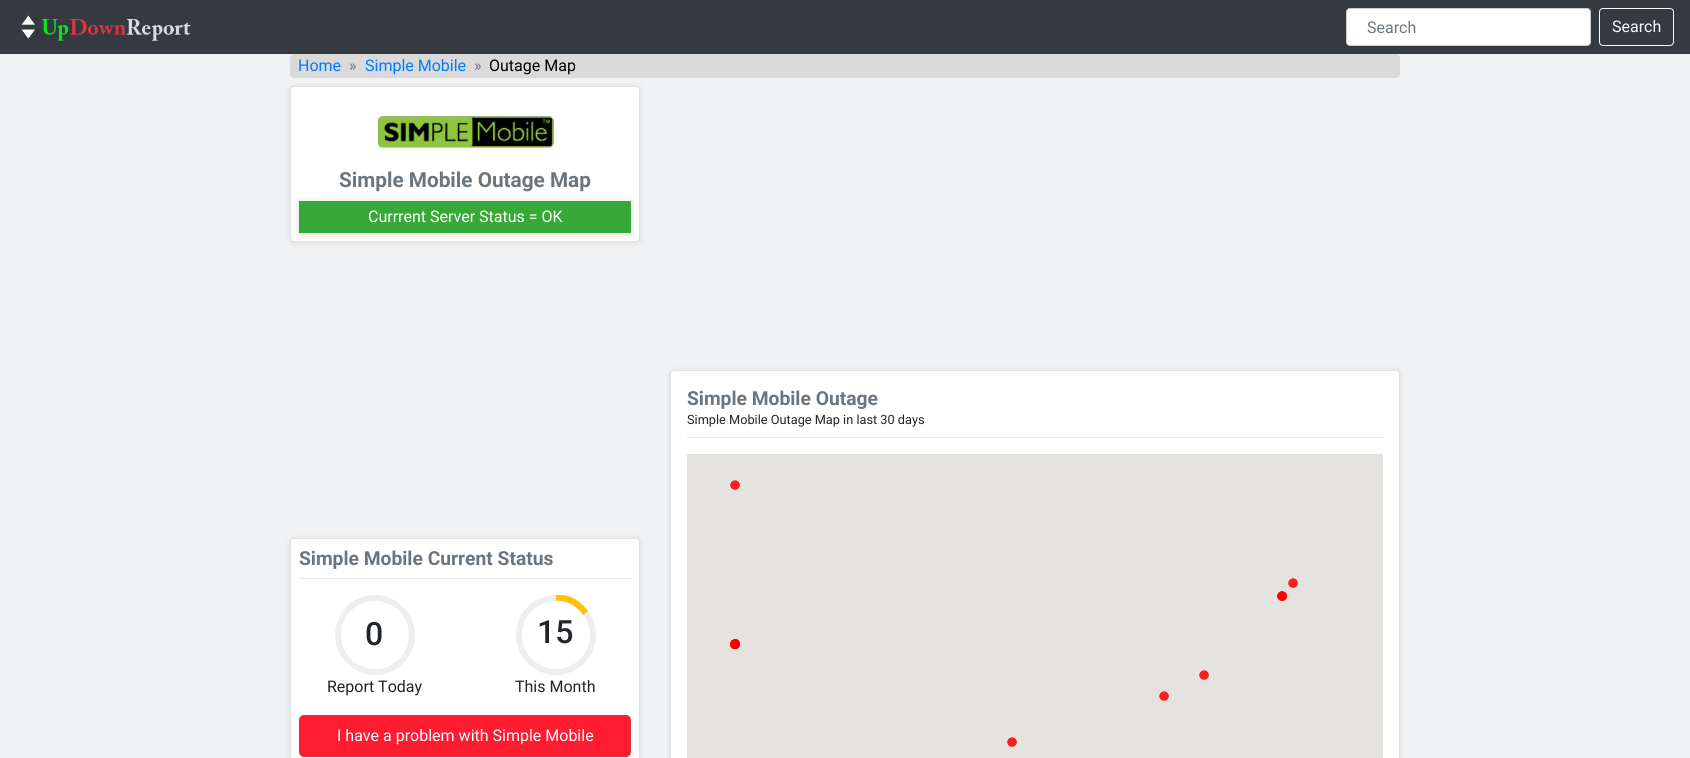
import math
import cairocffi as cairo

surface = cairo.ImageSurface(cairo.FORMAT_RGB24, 1690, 758)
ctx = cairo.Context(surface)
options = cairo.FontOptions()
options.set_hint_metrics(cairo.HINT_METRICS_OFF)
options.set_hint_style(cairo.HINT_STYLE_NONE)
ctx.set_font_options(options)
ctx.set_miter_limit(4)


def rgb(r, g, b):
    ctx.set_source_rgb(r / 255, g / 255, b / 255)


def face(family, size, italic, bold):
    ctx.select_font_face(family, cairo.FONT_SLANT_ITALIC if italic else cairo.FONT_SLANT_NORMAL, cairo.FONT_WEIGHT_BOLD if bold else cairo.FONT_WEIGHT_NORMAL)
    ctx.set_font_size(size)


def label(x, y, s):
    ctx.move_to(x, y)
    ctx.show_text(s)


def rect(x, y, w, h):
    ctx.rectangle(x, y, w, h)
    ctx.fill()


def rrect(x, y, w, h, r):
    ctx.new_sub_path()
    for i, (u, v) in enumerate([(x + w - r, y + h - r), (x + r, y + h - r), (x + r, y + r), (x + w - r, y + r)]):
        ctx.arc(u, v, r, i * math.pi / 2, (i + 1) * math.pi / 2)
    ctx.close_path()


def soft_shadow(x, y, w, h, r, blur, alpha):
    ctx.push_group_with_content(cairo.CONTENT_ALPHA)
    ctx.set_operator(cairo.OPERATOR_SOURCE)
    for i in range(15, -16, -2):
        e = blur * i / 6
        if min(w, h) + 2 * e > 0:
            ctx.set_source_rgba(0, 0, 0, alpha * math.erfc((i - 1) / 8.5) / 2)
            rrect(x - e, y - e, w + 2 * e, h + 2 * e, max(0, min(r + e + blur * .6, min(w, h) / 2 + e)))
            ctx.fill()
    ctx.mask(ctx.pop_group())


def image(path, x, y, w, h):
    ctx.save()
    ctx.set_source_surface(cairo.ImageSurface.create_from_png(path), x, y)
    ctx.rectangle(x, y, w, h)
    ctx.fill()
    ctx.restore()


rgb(240, 242, 244)
ctx.paint()
rgb(52, 58, 64)
rect(0, 0, 1690, 54)
image('image0.png', 21, 15, 170, 26)
rgb(255, 255, 255)
rrect(1346.5, 8.5, 244, 37, 3.5)
ctx.fill_preserve()
rgb(204, 204, 204)
ctx.set_line_width(1)
ctx.stroke()
face('Roboto', 16, 0, 0)
rgb(108, 117, 125)
label(1367, 33, 'Search')
rrect(1599.5, 8.5, 74, 37, 3.5)
rgb(248, 249, 250)
ctx.stroke()
label(1612, 32, 'Search')
rgb(218, 218, 218)
rrect(290, 54, 1110, 24, 4)
ctx.fill()
rgb(0, 123, 255)
label(298, 71, 'Home')
rgb(108, 117, 125)
label(349, 71, '»')
rgb(0, 123, 255)
label(365, 71, 'Simple Mobile')
rgb(108, 117, 125)
label(474, 71, '»')
rgb(0, 0, 0)
label(489, 71, 'Outage Map')
rgb(223, 223, 223)
soft_shadow(289, 86, 352, 158, 5, 2.5, 1)
rgb(255, 255, 255)
rrect(290, 86, 350, 156, 4)
ctx.fill()
rrect(290.5, 86.5, 349, 155, 3.5)
ctx.set_source_rgba(0, 0, 0, 0.12)
ctx.stroke()
image('image1.png', 378, 116, 176, 32)
face('Roboto', 20.75, 0, 1)
rgb(108, 117, 125)
label(339, 187, 'Simple Mobile Outage Map')
rgb(223, 223, 223)
soft_shadow(298, 201, 334, 34, 0, 2.5, 1)
rgb(54, 169, 54)
rect(299, 201, 332, 32)
face('Roboto', 16, 0, 0)
rgb(255, 255, 255)
label(368, 222, 'Currrent Server Status = OK')
rgb(223, 223, 223)
soft_shadow(289, 538, 352, 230, 5, 2.5, 1)
rgb(255, 255, 255)
rrect(290, 538, 350, 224, 4)
ctx.fill()
rrect(290.5, 538.5, 349, 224, 3.5)
ctx.set_source_rgba(0, 0, 0, 0.12)
ctx.stroke()
face('Roboto', 19.25, 0, 1)
rgb(108, 117, 125)
label(299, 565, 'Simple Mobile Current Status')
rgb(230, 230, 230)
rect(299, 578, 332, 1)
face('Roboto Medium', 32, 0, 0)
rgb(33, 37, 41)
label(365, 645, '0')
ctx.new_path()
ctx.arc(375, 635, 37, 0, 2 * math.pi)
rgb(238, 238, 238)
ctx.set_line_width(6)
ctx.stroke()
face('Roboto', 16, 0, 0)
rgb(33, 37, 41)
label(327, 692, 'Report Today')
face('Roboto Medium', 32, 0, 0)
label(537, 643, '15')
ctx.new_path()
ctx.arc(556, 635, 37, 0, 2 * math.pi)
rgb(238, 238, 238)
ctx.stroke()
ctx.save()
ctx.rectangle(556, 595, 40, 80)
ctx.clip()
rgb(255, 193, 7)
ctx.set_fill_rule(cairo.FILL_RULE_EVEN_ODD)
ctx.new_path()
ctx.move_to(588, 611)
ctx.curve_to(582, 603, 573, 596, 563, 595)
ctx.line_to(548, 595)
ctx.curve_to(533, 597, 518, 612, 516, 627)
ctx.line_to(516, 634)
ctx.curve_to(516, 644, 517, 650, 523, 658)
ctx.line_to(528, 655)
ctx.line_to(583, 615)
ctx.close_path()
ctx.move_to(583, 615)
ctx.curve_to(558, 579, 502, 617, 528, 655)
ctx.close_path()
ctx.fill()
ctx.restore()
face('Roboto', 16, 0, 0)
rgb(33, 37, 41)
label(515, 692, 'This Month')
rgb(255, 28, 49)
rrect(299.5, 715.5, 331, 41, 4.5)
ctx.fill_preserve()
rgb(220, 53, 69)
ctx.set_line_width(1)
ctx.stroke()
rgb(255, 255, 255)
label(337, 741, 'I have a problem with Simple Mobile')
rgb(223, 223, 223)
soft_shadow(669, 370, 732, 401, 5, 2.5, 1)
rgb(255, 255, 255)
rrect(670, 370, 730, 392, 4)
ctx.fill()
rrect(670.5, 370.5, 729, 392, 3.5)
ctx.set_source_rgba(0, 0, 0, 0.12)
ctx.stroke()
face('Roboto', 19.25, 0, 1)
rgb(108, 117, 125)
label(687, 405, 'Simple Mobile Outage')
face('Roboto', 12.75, 0, 0)
rgb(33, 37, 41)
label(687, 424, 'Simple Mobile Outage Map in last 30 days')
rgb(230, 230, 230)
rect(687, 437, 696, 1)
rgb(229, 227, 223)
rect(687, 454, 696, 304)
image('image2.png', 730, 480, 10, 10)
image('image3.png', 1277, 578, 21, 19)
image('image4.png', 730, 639, 10, 10)
image('image5.png', 1159, 597, 128, 104)
image('image2.png', 1007, 737, 10, 10)
surface.write_to_png('render.png')
